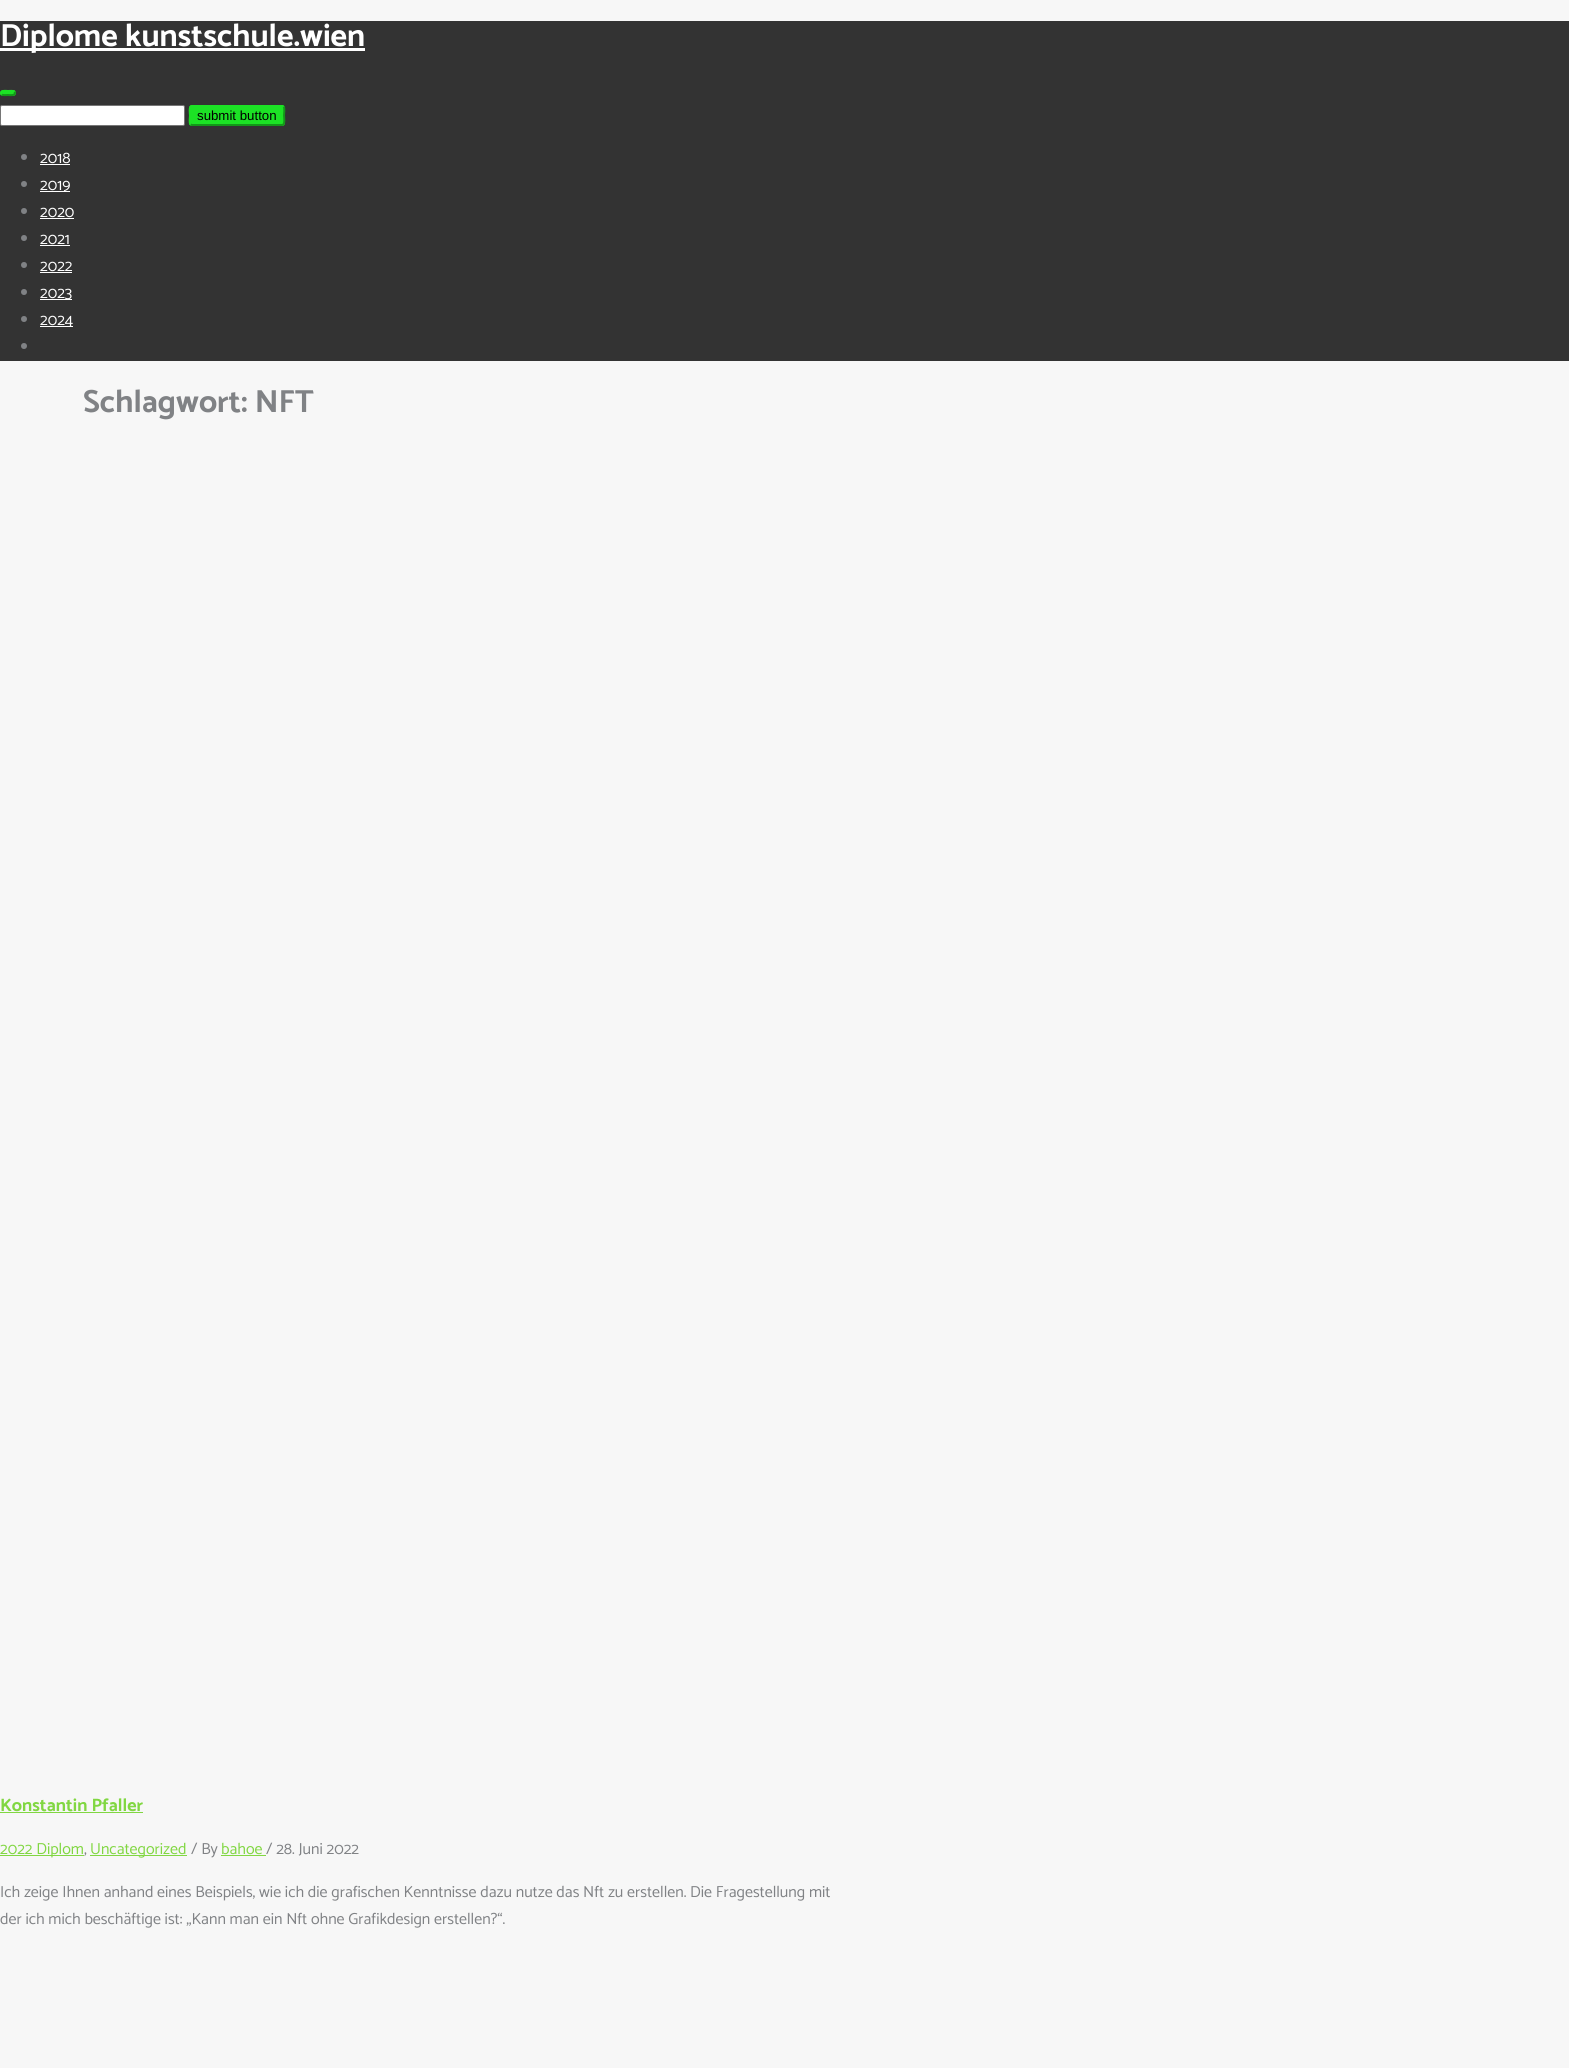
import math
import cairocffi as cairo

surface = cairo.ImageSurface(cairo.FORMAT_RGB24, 1569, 2068)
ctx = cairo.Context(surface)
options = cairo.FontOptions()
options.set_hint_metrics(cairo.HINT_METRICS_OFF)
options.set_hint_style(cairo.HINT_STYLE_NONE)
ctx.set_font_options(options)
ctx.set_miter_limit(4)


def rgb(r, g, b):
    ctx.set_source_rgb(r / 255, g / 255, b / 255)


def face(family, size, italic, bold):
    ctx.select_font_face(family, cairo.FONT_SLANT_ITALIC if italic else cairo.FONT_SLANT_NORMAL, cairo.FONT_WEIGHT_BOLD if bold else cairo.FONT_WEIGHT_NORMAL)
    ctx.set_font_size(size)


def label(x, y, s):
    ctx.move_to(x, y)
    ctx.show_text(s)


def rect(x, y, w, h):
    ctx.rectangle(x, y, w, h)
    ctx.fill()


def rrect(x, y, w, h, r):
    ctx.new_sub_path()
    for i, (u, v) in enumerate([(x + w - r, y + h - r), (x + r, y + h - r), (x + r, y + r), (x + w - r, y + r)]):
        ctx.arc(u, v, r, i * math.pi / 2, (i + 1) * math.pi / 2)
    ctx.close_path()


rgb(247, 247, 247)
ctx.paint()
rgb(51, 51, 51)
rect(0, 21, 1569, 340)
rgb(255, 255, 255)
rect(0, 48, 365, 3)
face('Catamaran', 32, 0, 1)
label(0, 46, 'Diplome kunstschule.wien')
rgb(28, 226, 37)
rrect(0, 90, 16, 6, 3)
ctx.fill()
ctx.new_path()
ctx.move_to(14.5, 91.5)
ctx.line_to(15, 93)
ctx.curve_to(14.5, 96, 9.5, 95, 8, 95)
ctx.curve_to(6.5, 95, 3, 95.5, 1.5, 94.5)
rgb(19, 151, 25)
ctx.stroke()
ctx.new_path()
ctx.move_to(1.5, 94.5)
ctx.line_to(1, 93)
ctx.curve_to(1.5, 90, 6.5, 91, 8, 91)
ctx.curve_to(9.5, 91, 13, 90.5, 14.5, 91.5)
rgb(28, 226, 37)
ctx.stroke()
rgb(255, 255, 255)
rrect(0.5, 105.5, 184, 20, 1.5)
ctx.fill_preserve()
rgb(118, 118, 118)
ctx.set_line_width(1)
ctx.stroke()
rgb(28, 226, 37)
rrect(189, 105, 96, 21, 3)
ctx.fill()
ctx.new_path()
ctx.move_to(283.5, 106.5)
ctx.curve_to(285, 108, 284, 113.5, 284, 115.5)
ctx.curve_to(284, 117, 285.5, 125, 282, 125)
ctx.line_to(192, 125)
ctx.line_to(190.5, 124.5)
rgb(19, 151, 25)
ctx.set_line_width(2)
ctx.stroke()
ctx.new_path()
ctx.move_to(190.5, 124.5)
ctx.curve_to(189, 123, 190, 117.5, 190, 115.5)
ctx.curve_to(190, 114, 188.5, 106, 192, 106)
ctx.line_to(282, 106)
ctx.line_to(283.5, 106.5)
rgb(28, 226, 37)
ctx.stroke()
face('Liberation Sans', 13.25, 0, 0)
rgb(0, 0, 0)
label(197, 120, 'submit button')
rgb(128, 130, 133)
ctx.new_path()
ctx.arc(24, 157, 3, 0, 2 * math.pi)
ctx.fill()
face('Catamaran', 16, 0, 0)
rgb(255, 255, 255)
label(40, 163, '2018')
rect(40, 164, 30, 1)
rgb(128, 130, 133)
ctx.new_path()
ctx.arc(24, 184, 3, 0, 2 * math.pi)
ctx.fill()
rgb(255, 255, 255)
rect(40, 191, 30, 1)
label(40, 190, '2019')
rgb(128, 130, 133)
ctx.new_path()
ctx.arc(24, 211, 3, 0, 2 * math.pi)
ctx.fill()
rgb(255, 255, 255)
label(40, 217, '2020')
rect(40, 218, 34, 1)
rgb(128, 130, 133)
ctx.new_path()
ctx.arc(24, 238, 3, 0, 2 * math.pi)
ctx.fill()
rgb(255, 255, 255)
label(40, 244, '2021')
rect(40, 245, 30, 1)
rgb(128, 130, 133)
ctx.new_path()
ctx.arc(24, 265, 3, 0, 2 * math.pi)
ctx.fill()
rgb(255, 255, 255)
label(40, 271, '2022')
rect(40, 272, 32, 1)
rgb(128, 130, 133)
ctx.new_path()
ctx.arc(24, 292, 3, 0, 2 * math.pi)
ctx.fill()
rgb(255, 255, 255)
rect(40, 299, 32, 1)
label(40, 298, '2023')
rgb(128, 130, 133)
ctx.new_path()
ctx.arc(24, 319, 3, 0, 2 * math.pi)
ctx.fill()
rgb(255, 255, 255)
rect(40, 326, 33, 1)
label(40, 325, '2024')
rgb(128, 130, 133)
ctx.new_path()
ctx.arc(24, 346, 3, 0, 2 * math.pi)
ctx.fill()
face('Catamaran', 32, 0, 1)
label(83, 412, 'Schlagwort: NFT')
face('Catamaran', 18, 0, 1)
rgb(129, 215, 66)
label(0, 1811, 'Konstantin Pfaller')
rect(0, 1812, 143, 1)
rect(0, 1855, 84, 1)
face('Catamaran', 16, 0, 0)
label(0, 1854, '2022 Diplom')
rgb(128, 130, 133)
label(84, 1854, ',')
rgb(129, 215, 66)
rect(90, 1855, 97, 1)
label(90, 1854, 'Uncategorized')
rgb(128, 130, 133)
label(191, 1854, '/ By')
rgb(129, 215, 66)
label(221, 1854, 'bahoe')
rect(221, 1855, 45, 1)
rgb(128, 130, 133)
label(266, 1854, '/ 28. Juni 2022')
label(0, 1897, 'Ich zeige Ihnen anhand eines Beispiels, wie ich die grafischen Kenntnisse dazu nutze das Nft zu erstellen. Die Fragestellung mit')
label(0, 1924, 'der ich mich beschäftige ist: „Kann man ein Nft ohne Grafikdesign erstellen?“.')
surface.write_to_png('render.png')
